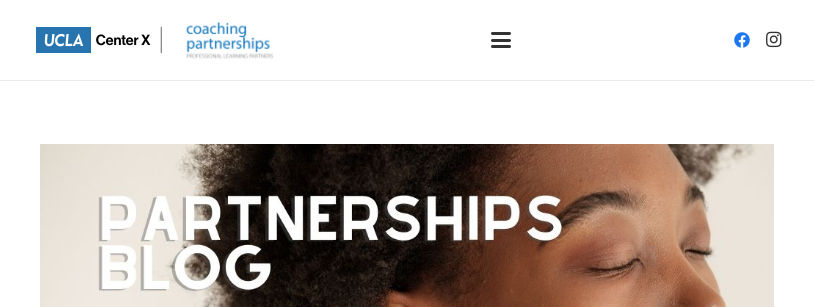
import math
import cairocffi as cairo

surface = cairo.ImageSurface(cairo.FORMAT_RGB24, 814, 307)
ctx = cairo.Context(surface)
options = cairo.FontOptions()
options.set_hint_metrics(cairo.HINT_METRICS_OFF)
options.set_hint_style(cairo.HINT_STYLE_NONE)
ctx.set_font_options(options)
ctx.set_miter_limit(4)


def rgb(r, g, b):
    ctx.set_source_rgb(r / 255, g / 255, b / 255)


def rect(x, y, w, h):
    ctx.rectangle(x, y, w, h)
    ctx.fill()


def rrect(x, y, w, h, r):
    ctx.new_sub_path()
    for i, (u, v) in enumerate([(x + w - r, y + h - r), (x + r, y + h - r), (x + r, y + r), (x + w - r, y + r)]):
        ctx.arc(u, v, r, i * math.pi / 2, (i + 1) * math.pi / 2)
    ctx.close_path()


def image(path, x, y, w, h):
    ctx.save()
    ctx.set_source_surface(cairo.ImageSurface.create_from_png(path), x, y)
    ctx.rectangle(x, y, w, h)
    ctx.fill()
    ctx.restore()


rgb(255, 255, 255)
ctx.paint()
rgb(235, 235, 235)
rect(0, 80, 814, 1)
image('image0.png', 36, 26, 126, 28)
image('image1.png', 186, 22, 88, 37)
rgb(51, 51, 51)
rrect(491, 39, 20, 3, 1.5)
ctx.fill()
rrect(491, 32, 20, 3, 1.5)
ctx.fill()
rrect(491, 45, 20, 3, 1.5)
ctx.fill()
image('image2.png', 734, 32, 16, 16)
image('image3.png', 766, 31, 16, 17)
image('image4.png', 40, 144, 734, 163)
surface.write_to_png('render.png')
